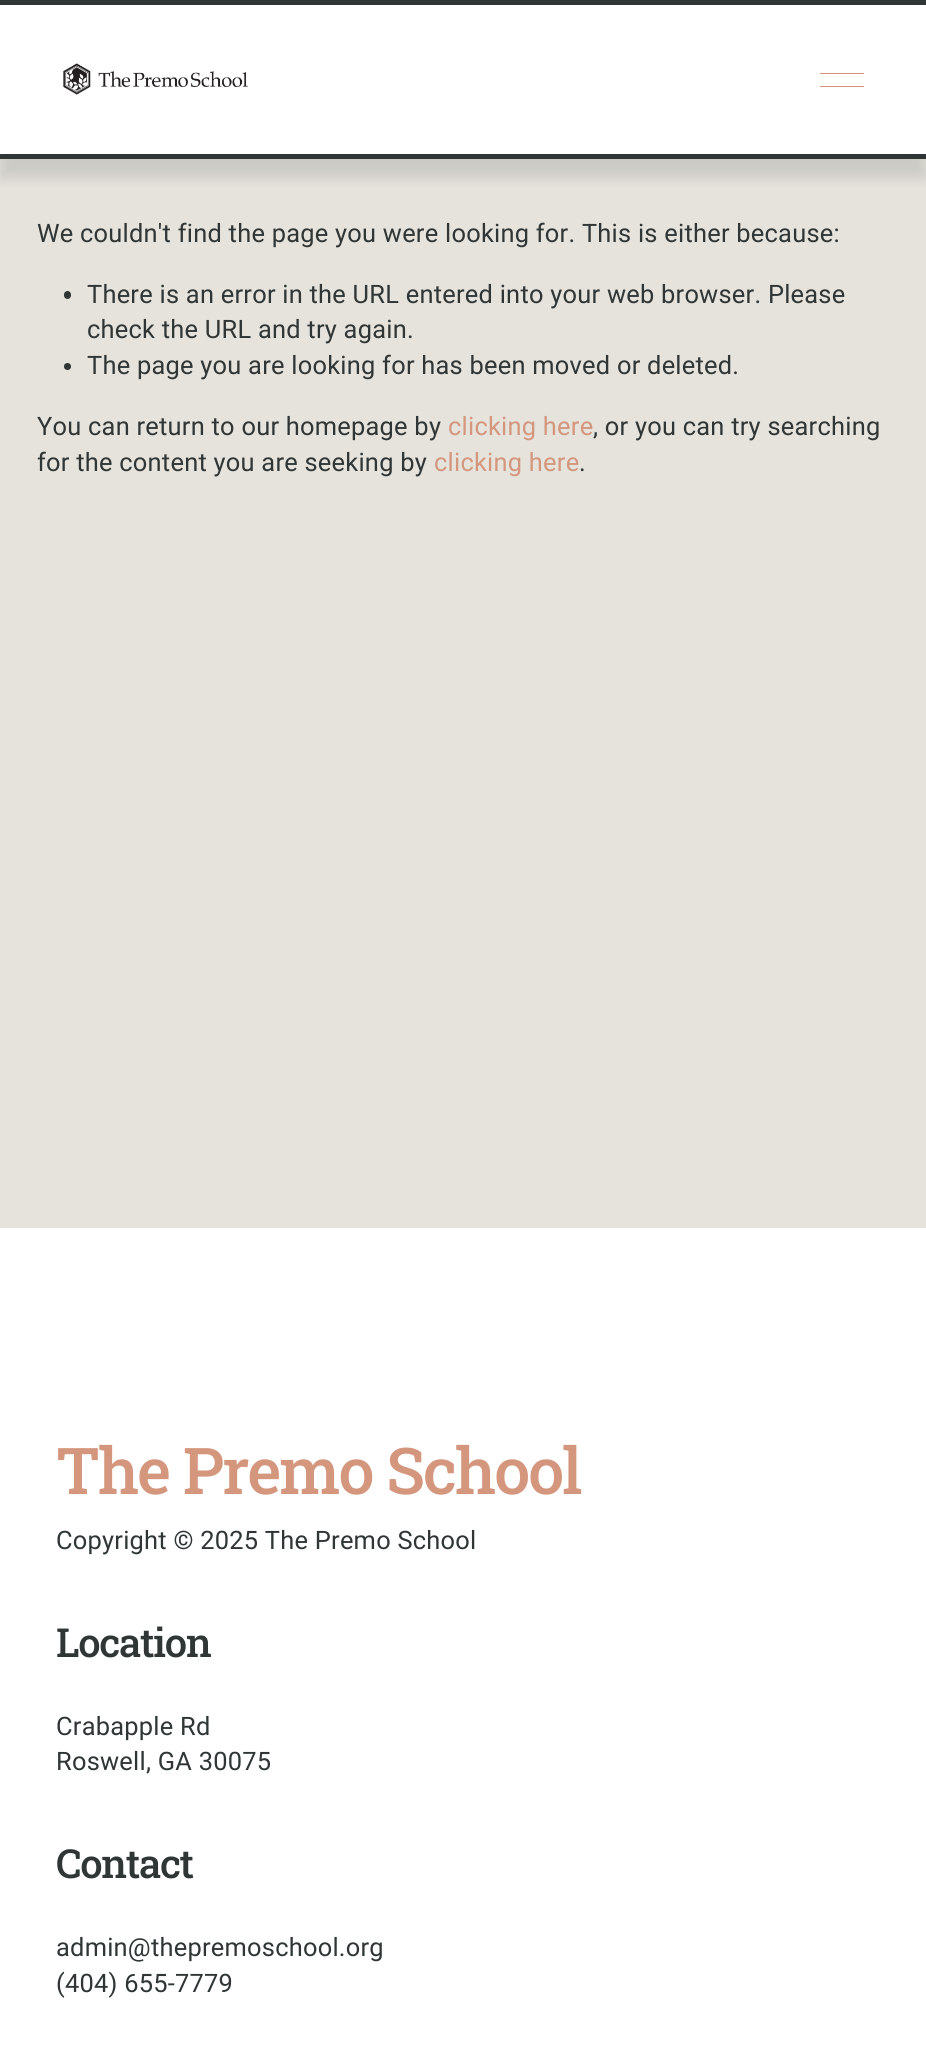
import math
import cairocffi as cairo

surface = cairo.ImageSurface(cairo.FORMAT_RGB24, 926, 2045)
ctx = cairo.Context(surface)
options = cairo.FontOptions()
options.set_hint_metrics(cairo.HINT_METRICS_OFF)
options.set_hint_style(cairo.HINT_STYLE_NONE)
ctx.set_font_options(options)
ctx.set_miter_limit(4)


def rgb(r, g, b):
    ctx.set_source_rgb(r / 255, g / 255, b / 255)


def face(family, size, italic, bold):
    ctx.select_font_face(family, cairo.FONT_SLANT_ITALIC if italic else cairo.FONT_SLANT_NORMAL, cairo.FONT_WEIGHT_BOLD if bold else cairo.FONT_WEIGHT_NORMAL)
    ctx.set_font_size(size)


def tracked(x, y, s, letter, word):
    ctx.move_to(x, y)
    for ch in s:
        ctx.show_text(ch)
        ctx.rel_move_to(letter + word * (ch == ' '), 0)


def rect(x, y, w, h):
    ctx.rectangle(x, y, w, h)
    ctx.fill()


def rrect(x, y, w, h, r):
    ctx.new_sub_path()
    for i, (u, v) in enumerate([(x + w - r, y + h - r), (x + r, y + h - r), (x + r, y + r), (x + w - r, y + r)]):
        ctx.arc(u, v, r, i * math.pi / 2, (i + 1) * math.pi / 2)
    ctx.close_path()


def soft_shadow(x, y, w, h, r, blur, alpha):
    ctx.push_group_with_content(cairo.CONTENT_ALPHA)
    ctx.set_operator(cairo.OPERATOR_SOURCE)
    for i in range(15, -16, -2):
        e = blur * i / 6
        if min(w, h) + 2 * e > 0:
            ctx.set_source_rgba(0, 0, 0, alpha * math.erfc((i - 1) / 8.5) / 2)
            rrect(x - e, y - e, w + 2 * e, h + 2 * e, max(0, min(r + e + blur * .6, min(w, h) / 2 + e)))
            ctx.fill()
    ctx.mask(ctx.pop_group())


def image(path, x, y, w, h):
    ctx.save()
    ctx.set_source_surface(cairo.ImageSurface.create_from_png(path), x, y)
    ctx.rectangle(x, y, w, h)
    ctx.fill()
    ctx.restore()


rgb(229, 227, 220)
ctx.paint()
rgb(255, 255, 255)
rect(0, 5, 926, 149)
ctx.save()
ctx.rectangle(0, 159, 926, 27)
ctx.clip()
rgb(48, 54, 54)
soft_shadow(0, 19, 926, 159, 0, 7.5, 0.15)
ctx.restore()
rgb(48, 54, 54)
rect(0, 0, 926, 5)
rect(0, 154, 926, 5)
image('image0.png', 63, 63, 185, 32)
rgb(212, 150, 125)
rect(820, 73, 44, 1)
rect(820, 86, 44, 1)
face('Roboto', 25.4, 0, 0)
rgb(48, 54, 54)
tracked(37, 242, 'We couldn\'t find the page you were looking for. This is either because:', 0.25, 0)
rrect(64, 291, 7, 8, 3.5)
ctx.fill()
tracked(87, 303, 'There is an error in the URL entered into your web browser. Please', 0.25, 0)
tracked(87, 338, 'check the URL and try again.', 0.25, 0)
ctx.new_path()
ctx.arc(67.5, 366.5, 3.5, 0, 2 * math.pi)
ctx.fill()
tracked(87, 374, 'The page you are looking for has been moved or deleted.', 0.25, 0)
tracked(37, 435, 'You can return to our homepage by', 0.25, 0)
rgb(212, 150, 125)
tracked(448, 435, 'clicking here', 0.25, 0)
rgb(48, 54, 54)
tracked(593, 435, ', or you can try searching', 0.25, 0)
tracked(37, 471, 'for the content you are seeking by', 0.25, 0)
rgb(212, 150, 125)
tracked(434, 471, 'clicking here', 0.25, 0)
rgb(48, 54, 54)
tracked(579, 471, '.', 0.25, 0)
rgb(255, 255, 255)
rect(0, 1228, 926, 817)
face('Roboto Slab Medium', 64.5, 0, 0)
rgb(212, 150, 125)
tracked(56, 1494, 'The Premo School', -2, 0)
face('Roboto', 25.4, 0, 0)
rgb(48, 54, 54)
tracked(56, 1549, 'Copyright © 2025 The Premo School', 0.25, 0)
face('Roboto Slab Medium', 40, 0, 0)
tracked(56, 1657, 'Location', -1.25, 0)
face('Roboto', 25.4, 0, 0)
tracked(56, 1735, 'Crabapple Rd', 0.25, 0)
tracked(56, 1770, 'Roswell, GA 30075', 0.25, 0)
face('Roboto Slab Medium', 40, 0, 0)
tracked(56, 1878, 'Contact', -1.25, 0)
face('Roboto', 25.4, 0, 0)
tracked(56, 1956, 'admin@thepremoschool.org', 0.25, 0)
tracked(56, 1992, '(404) 655-7779', 0.25, 0)
surface.write_to_png('render.png')
